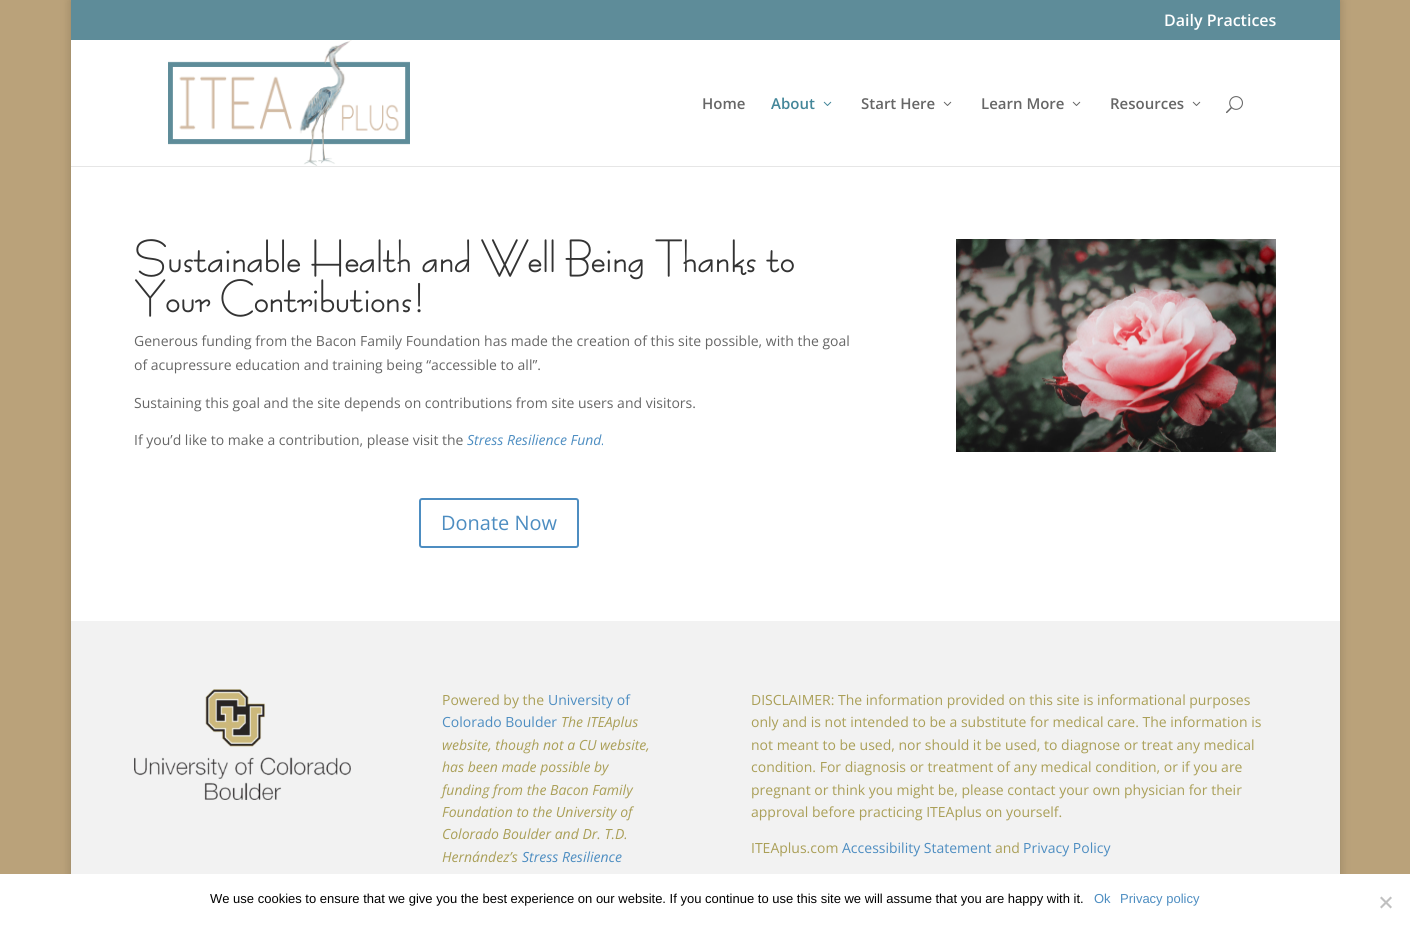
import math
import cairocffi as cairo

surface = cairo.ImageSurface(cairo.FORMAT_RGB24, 1410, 930)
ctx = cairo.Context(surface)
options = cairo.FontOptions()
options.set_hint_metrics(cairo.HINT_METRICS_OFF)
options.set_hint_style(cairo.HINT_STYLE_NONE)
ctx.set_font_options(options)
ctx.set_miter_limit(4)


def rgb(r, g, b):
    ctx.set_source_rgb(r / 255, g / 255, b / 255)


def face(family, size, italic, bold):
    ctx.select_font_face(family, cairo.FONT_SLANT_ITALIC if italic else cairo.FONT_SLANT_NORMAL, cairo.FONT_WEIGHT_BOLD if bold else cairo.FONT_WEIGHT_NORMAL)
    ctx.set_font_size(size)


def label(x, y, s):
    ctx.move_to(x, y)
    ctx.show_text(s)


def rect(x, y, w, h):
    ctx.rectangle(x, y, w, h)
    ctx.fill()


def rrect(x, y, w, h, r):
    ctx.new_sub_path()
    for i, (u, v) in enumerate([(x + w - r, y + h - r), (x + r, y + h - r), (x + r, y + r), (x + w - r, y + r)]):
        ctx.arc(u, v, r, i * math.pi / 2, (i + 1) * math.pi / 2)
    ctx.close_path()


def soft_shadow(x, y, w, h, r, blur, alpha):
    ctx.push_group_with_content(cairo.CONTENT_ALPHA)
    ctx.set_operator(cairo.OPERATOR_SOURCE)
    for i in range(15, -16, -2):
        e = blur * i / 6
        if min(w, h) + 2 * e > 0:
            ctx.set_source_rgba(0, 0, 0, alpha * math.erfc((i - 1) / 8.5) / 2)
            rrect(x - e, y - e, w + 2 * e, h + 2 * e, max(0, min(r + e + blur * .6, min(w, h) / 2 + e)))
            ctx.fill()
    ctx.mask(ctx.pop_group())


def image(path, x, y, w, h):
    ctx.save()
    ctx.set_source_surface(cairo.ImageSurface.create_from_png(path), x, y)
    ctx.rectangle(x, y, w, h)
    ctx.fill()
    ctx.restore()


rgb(186, 162, 122)
ctx.paint()
rgb(0, 0, 0)
soft_shadow(71, 0, 1269, 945, 0, 5, 0.2)
rgb(94, 140, 153)
rect(71, 0, 1269, 40)
face('Open Sans SemiBold', 16, 0, 0)
rgb(255, 255, 255)
label(1164, 26, 'Daily Practices')
rgb(230, 230, 230)
rect(71, 166, 1269, 1)
rgb(255, 255, 255)
rect(71, 40, 1269, 126)
image('image0.png', 168, 40, 242, 126)
face('Open Sans SemiBold', 15, 0, 0)
rgb(102, 102, 102)
label(702, 109, 'Home')
rgb(67, 134, 153)
label(771, 109, 'About')
image('image1.png', 823, 101, 9, 5)
rgb(102, 102, 102)
label(861, 109, 'Start Here')
image('image2.png', 943, 101, 9, 5)
label(981, 109, 'Learn More')
image('image2.png', 1072, 101, 9, 5)
label(1110, 109, 'Resources')
image('image2.png', 1192, 101, 9, 5)
image('image3.png', 1226, 96, 17, 18)
rgb(255, 255, 255)
rect(71, 167, 1269, 454)
face('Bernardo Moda', 40, 0, 1)
rgb(51, 51, 51)
label(134, 272, 'Sustainable Health and Well Being Thanks to')
label(134, 312, 'Your Contributions!')
face('Open Sans', 14, 0, 0)
rgb(102, 102, 102)
label(134, 346, 'Generous funding from the Bacon Family Foundation has made the creation of this site possible, with the goal')
label(134, 370, 'of acupressure education and training being “accessible to all”.')
label(134, 408, 'Sustaining this goal and the site depends on contributions from site users and visitors.')
label(134, 445, 'If you’d like to make a contribution, please visit the')
face('Open Sans', 14, 1, 0)
rgb(77, 141, 193)
label(467, 445, 'Stress Resilience Fund.')
rrect(420, 499, 158, 48, 2)
ctx.stroke()
face('Open Sans', 20, 0, 0)
label(441, 530, 'Donate Now')
image('image4.png', 956, 239, 320, 213)
rgb(242, 242, 242)
rect(71, 621, 1269, 253)
image('image5.png', 134, 689, 217, 111)
face('Open Sans', 14, 0, 0)
rgb(170, 159, 87)
label(442, 705, 'Powered by the')
rgb(77, 141, 193)
label(548, 705, 'University of')
label(442, 727, 'Colorado Boulder')
face('Open Sans', 14, 1, 0)
rgb(170, 159, 87)
label(561, 727, 'The ITEAplus')
label(442, 750, 'website, though not a CU website,')
label(442, 772, 'has been made possible by')
label(442, 795, 'funding from the Bacon Family')
label(442, 817, 'Foundation to the University of')
label(442, 839, 'Colorado Boulder and Dr. T.D.')
label(442, 862, 'Hernández’s')
rgb(77, 141, 193)
label(522, 862, 'Stress Resilience')
face('Open Sans', 14, 0, 0)
rgb(170, 159, 87)
label(751, 705, 'DISCLAIMER: The information provided on this site is informational purposes')
label(751, 727, 'only and is not intended to be a substitute for medical care. The information is')
label(751, 750, 'not meant to be used, nor should it be used, to diagnose or treat any medical')
label(751, 772, 'condition. For diagnosis or treatment of any medical condition, or if you are')
label(751, 795, 'pregnant or think you might be, please contact your own physician for their')
label(751, 817, 'approval before practicing ITEAplus on yourself.')
label(751, 853, 'ITEAplus.com')
rgb(77, 141, 193)
label(842, 853, 'Accessibility Statement')
rgb(170, 159, 87)
label(995, 853, 'and')
rgb(77, 141, 193)
label(1023, 853, 'Privacy Policy')
rgb(255, 255, 255)
rect(0, 874, 1410, 56)
face('Liberation Sans', 13, 0, 0)
rgb(0, 0, 0)
label(210, 903, 'We use cookies to ensure that we give you the best experience on our website. If you continue to use this site we will assume that you are happy with it.')
rgb(77, 141, 193)
label(1094, 903, 'Ok')
label(1120, 903, 'Privacy policy')
rgb(192, 192, 192)
ctx.new_path()
ctx.move_to(1390.5, 896.5)
ctx.line_to(1392, 898)
ctx.line_to(1381.5, 908.5)
ctx.line_to(1380, 907)
ctx.close_path()
ctx.fill()
ctx.new_path()
ctx.move_to(1380, 898)
ctx.line_to(1381.5, 896.5)
ctx.line_to(1392, 907)
ctx.line_to(1390.5, 908.5)
ctx.close_path()
ctx.fill()
surface.write_to_png('render.png')
